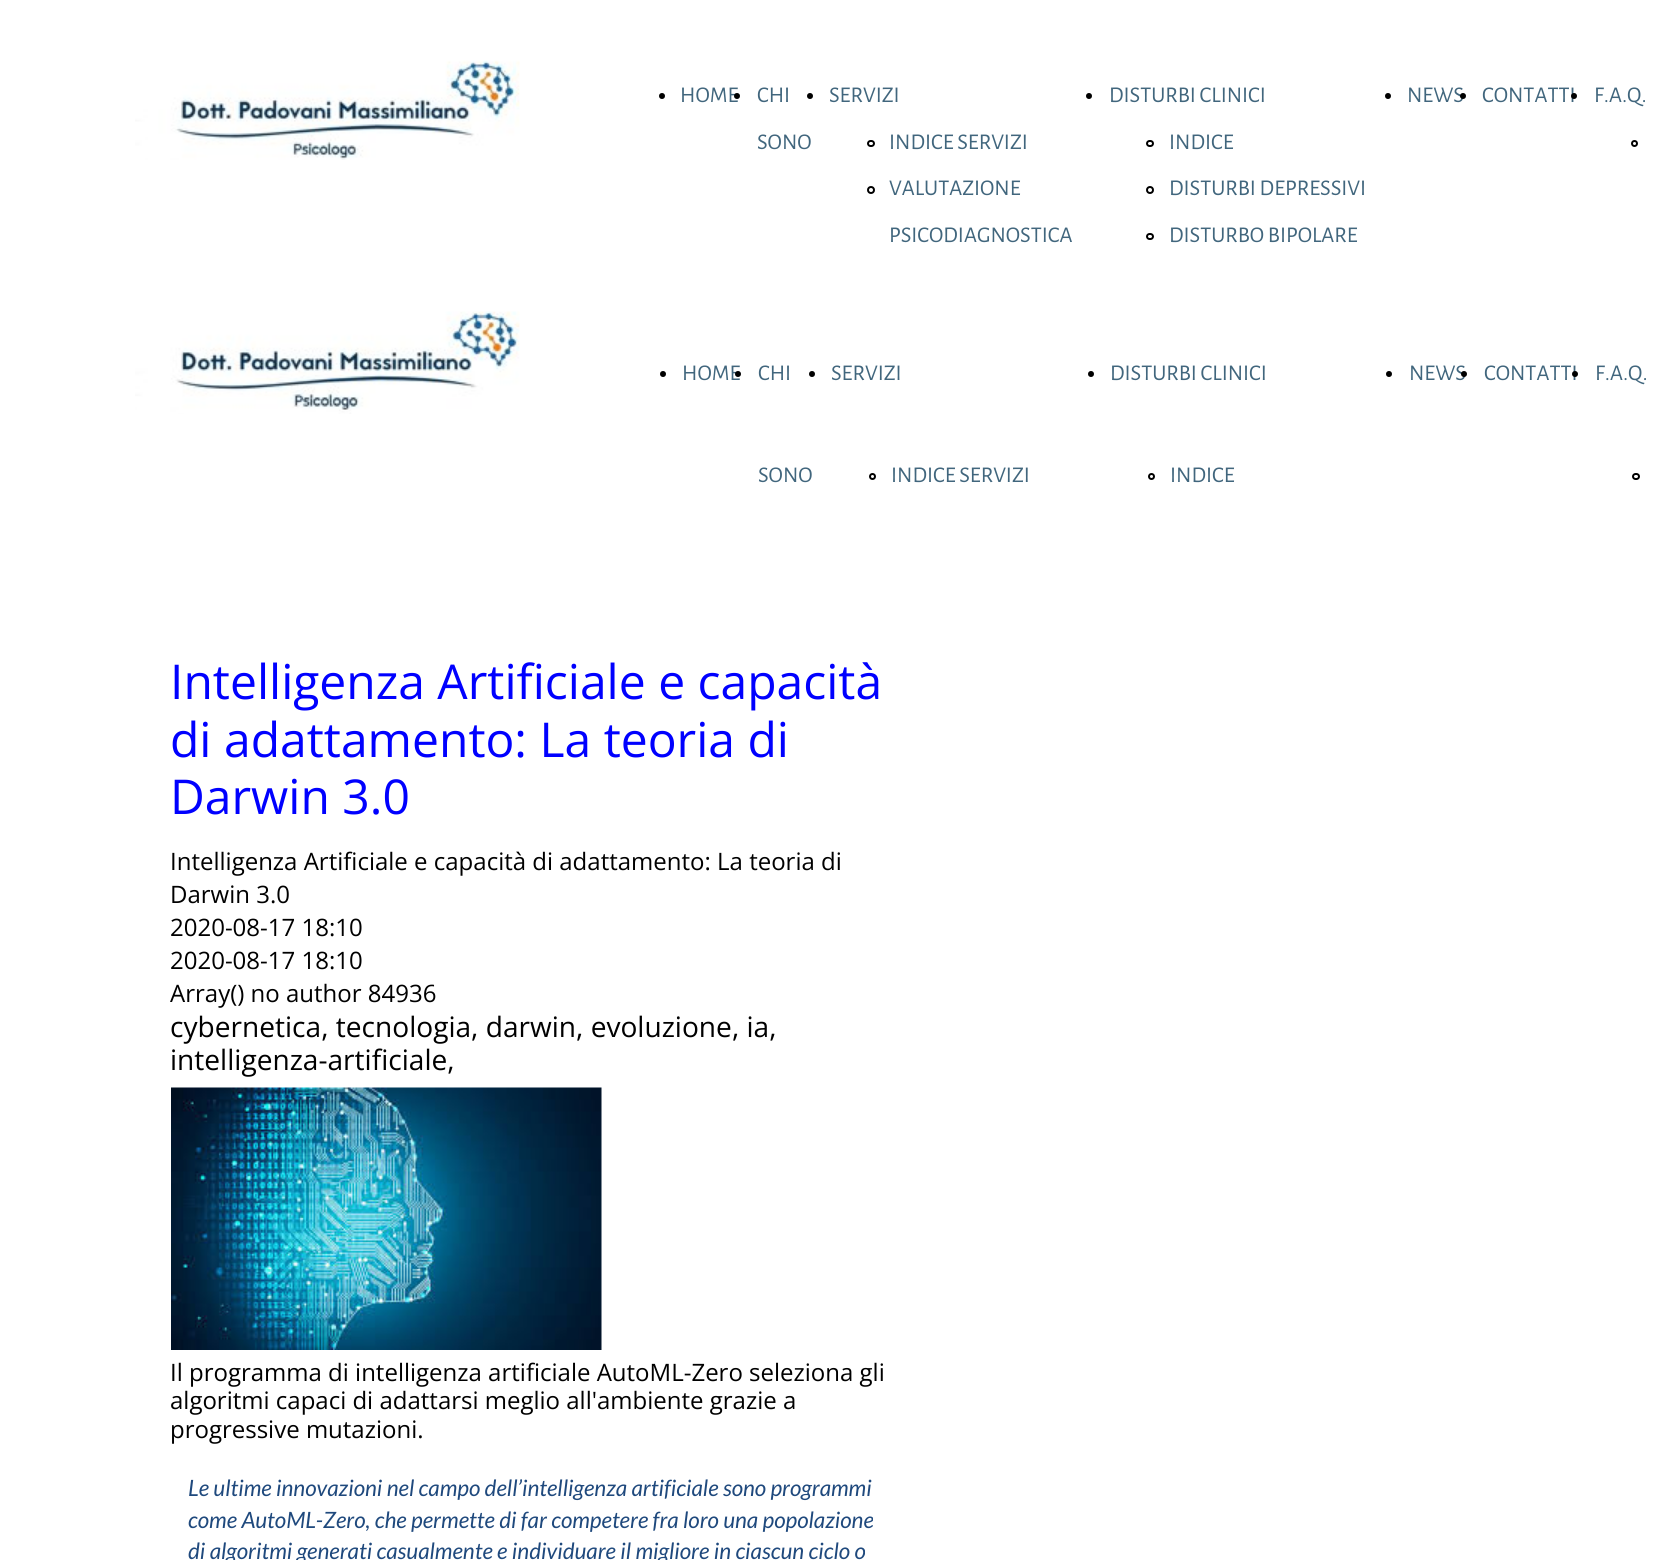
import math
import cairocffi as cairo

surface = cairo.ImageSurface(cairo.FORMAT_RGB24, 1660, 1560)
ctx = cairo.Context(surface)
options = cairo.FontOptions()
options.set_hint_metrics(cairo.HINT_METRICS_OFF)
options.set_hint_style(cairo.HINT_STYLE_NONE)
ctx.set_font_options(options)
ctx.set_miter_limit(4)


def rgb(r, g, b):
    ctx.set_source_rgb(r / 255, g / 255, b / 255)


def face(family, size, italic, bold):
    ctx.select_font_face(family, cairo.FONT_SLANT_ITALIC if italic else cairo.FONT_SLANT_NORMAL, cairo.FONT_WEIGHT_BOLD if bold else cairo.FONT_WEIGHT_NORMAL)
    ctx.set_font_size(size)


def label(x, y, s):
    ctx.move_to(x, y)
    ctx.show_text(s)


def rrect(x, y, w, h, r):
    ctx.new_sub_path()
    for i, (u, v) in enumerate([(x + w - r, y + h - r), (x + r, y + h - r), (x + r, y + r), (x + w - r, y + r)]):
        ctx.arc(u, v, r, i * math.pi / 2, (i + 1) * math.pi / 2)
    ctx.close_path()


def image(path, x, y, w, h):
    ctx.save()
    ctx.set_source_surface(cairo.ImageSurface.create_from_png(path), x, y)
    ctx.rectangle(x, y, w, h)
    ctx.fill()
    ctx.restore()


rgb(255, 255, 255)
ctx.paint()
image('image0.png', 135, 60, 385, 100)
rgb(0, 0, 0)
ctx.arc(662, 96, 3, 0, 2 * math.pi)
ctx.fill()
face('Alegreya Sans', 22.5, 0, 0)
rgb(65, 102, 125)
label(680, 102, 'HOME')
rgb(0, 0, 0)
ctx.new_path()
ctx.arc(737, 96, 3, 0, 2 * math.pi)
ctx.fill()
rgb(65, 102, 125)
label(757, 102, 'CHI')
label(757, 149, 'SONO')
rgb(0, 0, 0)
ctx.new_path()
ctx.arc(810, 96, 3, 0, 2 * math.pi)
ctx.fill()
rgb(65, 102, 125)
label(829, 102, 'SERVIZI')
rrect(868, 141, 6, 5, 2.5)
rgb(0, 0, 0)
ctx.stroke()
rgb(65, 102, 125)
label(889, 149, 'INDICE SERVIZI')
ctx.new_path()
ctx.arc(871, 190, 3, 0, 2 * math.pi)
rgb(0, 0, 0)
ctx.stroke()
rgb(65, 102, 125)
label(889, 195, 'VALUTAZIONE')
label(889, 242, 'PSICODIAGNOSTICA')
rgb(0, 0, 0)
ctx.new_path()
ctx.arc(1089, 96, 3, 0, 2 * math.pi)
ctx.fill()
rgb(65, 102, 125)
label(1109, 102, 'DISTURBI CLINICI')
rrect(1147, 141, 6, 5, 2.5)
rgb(0, 0, 0)
ctx.stroke()
rgb(65, 102, 125)
label(1169, 149, 'INDICE')
ctx.new_path()
ctx.arc(1150, 190, 3, 0, 2 * math.pi)
rgb(0, 0, 0)
ctx.stroke()
rgb(65, 102, 125)
label(1169, 195, 'DISTURBI DEPRESSIVI')
rrect(1147, 234, 6, 5, 2.5)
rgb(0, 0, 0)
ctx.stroke()
rgb(65, 102, 125)
label(1169, 242, 'DISTURBO BIPOLARE')
rgb(0, 0, 0)
ctx.new_path()
ctx.arc(1388, 96, 3, 0, 2 * math.pi)
ctx.fill()
rgb(65, 102, 125)
label(1407, 102, 'NEWS')
rgb(0, 0, 0)
ctx.new_path()
ctx.arc(1463, 96, 3, 0, 2 * math.pi)
ctx.fill()
rgb(65, 102, 125)
label(1482, 102, 'CONTATTI')
rgb(0, 0, 0)
ctx.new_path()
ctx.arc(1574, 96, 3, 0, 2 * math.pi)
ctx.fill()
rgb(65, 102, 125)
label(1594, 102, 'F.A.Q.')
ctx.new_path()
ctx.arc(1634.5, 143.5, 2.5, 0, 2 * math.pi)
rgb(0, 0, 0)
ctx.stroke()
image('image1.png', 135, 311, 385, 103)
ctx.arc(663, 374, 3, 0, 2 * math.pi)
ctx.fill()
rgb(65, 102, 125)
label(682, 380, 'HOME')
rgb(0, 0, 0)
ctx.new_path()
ctx.arc(738, 374, 3, 0, 2 * math.pi)
ctx.fill()
rgb(65, 102, 125)
label(758, 380, 'CHI')
label(758, 482, 'SONO')
rgb(0, 0, 0)
ctx.new_path()
ctx.arc(812, 374, 3, 0, 2 * math.pi)
ctx.fill()
rgb(65, 102, 125)
label(831, 380, 'SERVIZI')
ctx.new_path()
ctx.arc(872.5, 476.5, 2.5, 0, 2 * math.pi)
rgb(0, 0, 0)
ctx.stroke()
rgb(65, 102, 125)
label(891, 482, 'INDICE SERVIZI')
rgb(0, 0, 0)
ctx.new_path()
ctx.arc(1091, 374, 3, 0, 2 * math.pi)
ctx.fill()
rgb(65, 102, 125)
label(1110, 380, 'DISTURBI CLINICI')
ctx.new_path()
ctx.arc(1151.5, 476.5, 2.5, 0, 2 * math.pi)
rgb(0, 0, 0)
ctx.stroke()
rgb(65, 102, 125)
label(1170, 482, 'INDICE')
rgb(0, 0, 0)
ctx.new_path()
ctx.arc(1389, 374, 3, 0, 2 * math.pi)
ctx.fill()
rgb(65, 102, 125)
label(1409, 380, 'NEWS')
rgb(0, 0, 0)
ctx.new_path()
ctx.arc(1464, 374, 3, 0, 2 * math.pi)
ctx.fill()
rgb(65, 102, 125)
label(1484, 380, 'CONTATTI')
rgb(0, 0, 0)
ctx.new_path()
ctx.arc(1575, 374, 3, 0, 2 * math.pi)
ctx.fill()
rgb(65, 102, 125)
label(1595, 380, 'F.A.Q.')
rrect(1633, 474, 6, 5, 2.5)
rgb(0, 0, 0)
ctx.stroke()
face('Open Sans', 48, 0, 0)
rgb(0, 0, 255)
label(170, 699, 'Intelligenza Artificiale e capacità')
label(170, 757, 'di adattamento: La teoria di')
label(170, 814, 'Darwin 3.0')
face('Open Sans', 24, 0, 0)
rgb(0, 0, 0)
label(170, 870, 'Intelligenza Artificiale e capacità di adattamento: La teoria di')
label(170, 903, 'Darwin 3.0')
label(170, 936, '2020-08-17 18:10')
label(170, 969, '2020-08-17 18:10')
label(170, 1002, 'Array() no author 84936')
face('Open Sans', 28.1, 0, 0)
label(170, 1037, 'cybernetica, tecnologia, darwin, evoluzione, ia,')
label(170, 1070, 'intelligenza-artificiale,')
image('image2.png', 171, 1087, 431, 263)
face('Open Sans', 24, 0, 0)
label(170, 1381, 'Il programma di intelligenza artificiale AutoML-Zero seleziona gli')
label(170, 1409, 'algoritmi capaci di adattarsi meglio all\'ambiente grazie a')
label(170, 1438, 'progressive mutazioni.')
face('Lato', 22.5, 1, 0)
rgb(31, 73, 125)
label(188, 1496, 'Le ultime innovazioni nel campo dell’intelligenza artificiale sono programmi')
label(188, 1528, 'come AutoML-Zero, che permette di far competere fra loro una popolazione')
label(188, 1559, 'di algoritmi generati casualmente e individuare il migliore in ciascun ciclo o')
surface.write_to_png('render.png')
